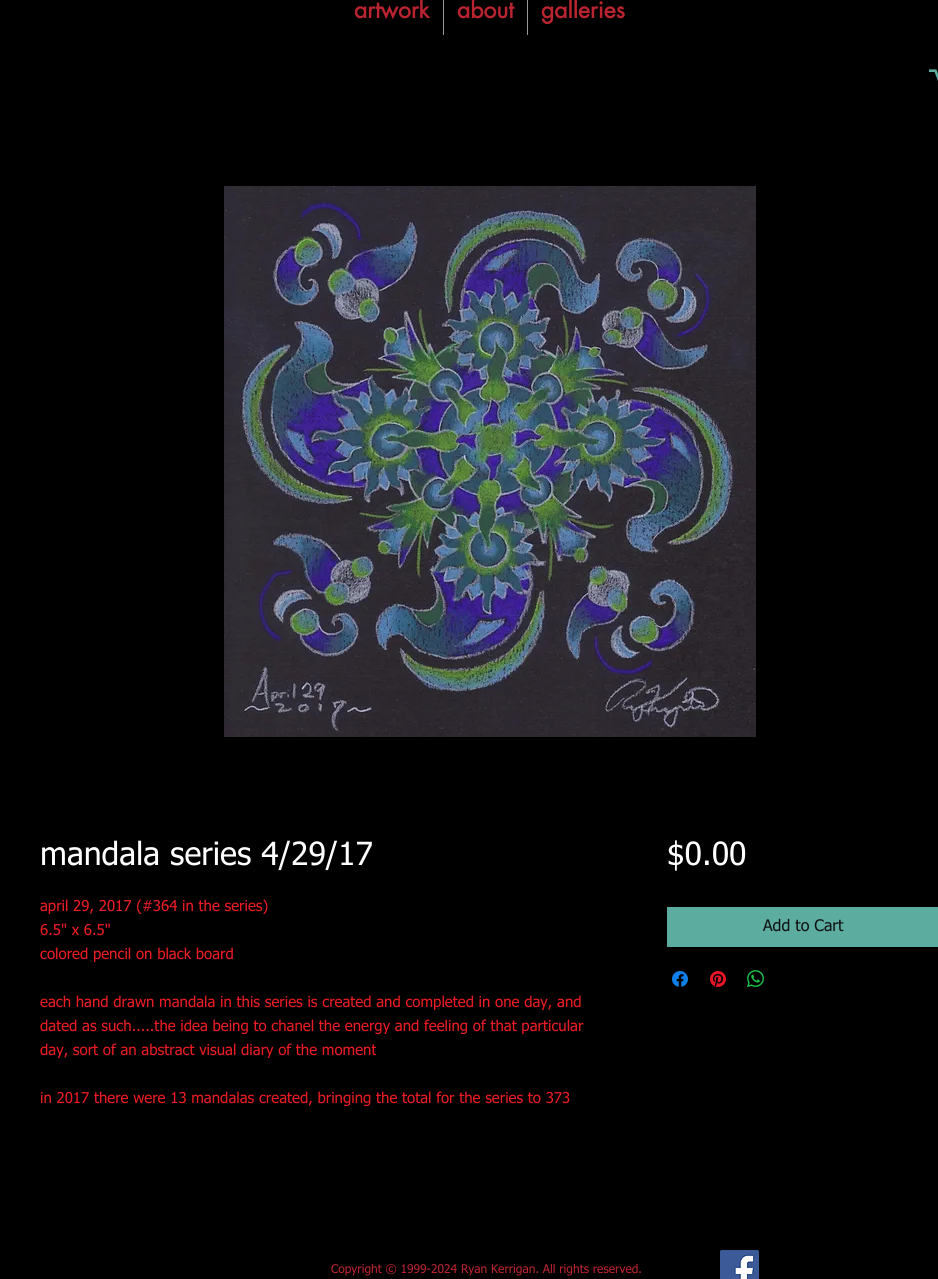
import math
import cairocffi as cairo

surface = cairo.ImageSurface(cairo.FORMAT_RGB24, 938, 1279)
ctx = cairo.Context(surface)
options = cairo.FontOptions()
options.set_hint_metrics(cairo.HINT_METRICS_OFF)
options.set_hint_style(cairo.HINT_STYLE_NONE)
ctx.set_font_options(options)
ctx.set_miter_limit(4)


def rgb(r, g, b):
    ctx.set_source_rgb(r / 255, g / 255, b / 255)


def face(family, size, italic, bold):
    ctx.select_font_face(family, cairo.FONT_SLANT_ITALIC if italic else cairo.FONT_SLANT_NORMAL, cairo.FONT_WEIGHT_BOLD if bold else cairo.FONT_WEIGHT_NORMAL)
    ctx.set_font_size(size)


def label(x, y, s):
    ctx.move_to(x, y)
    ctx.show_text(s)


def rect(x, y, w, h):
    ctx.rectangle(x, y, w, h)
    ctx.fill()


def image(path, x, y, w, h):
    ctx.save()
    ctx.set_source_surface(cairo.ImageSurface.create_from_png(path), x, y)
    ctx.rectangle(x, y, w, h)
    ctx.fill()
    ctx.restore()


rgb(0, 0, 0)
ctx.paint()
face('futura', 23, 0, 1)
rgb(186, 36, 48)
label(354, 18, 'artwork')
rgb(153, 153, 153)
rect(443, 0, 1, 35)
rgb(186, 36, 48)
label(457, 18, 'about')
rgb(153, 153, 153)
rect(527, 0, 1, 35)
rgb(186, 36, 48)
label(541, 18, 'galleries')
image('image0.png', 929, 69, 9, 12)
image('image1.png', 224, 186, 532, 551)
face('tahoma', 32, 0, 0)
rgb(255, 255, 255)
label(40, 865, 'mandala series 4/29/17')
face('tahoma', 15, 0, 0)
rgb(237, 28, 36)
label(40, 911, 'april 29, 2017 (#364 in the series)')
label(40, 935, '6.5" x 6.5"')
label(40, 959, 'colored pencil on black board')
label(40, 1007, 'each hand drawn mandala in this series is created and completed in one day, and')
label(40, 1031, 'dated as such.....the idea being to chanel the energy and feeling of that particular')
label(40, 1055, 'day, sort of an abstract visual diary of the moment')
label(40, 1103, 'in 2017 there were 13 mandalas created, bringing the total for the series to 373')
face('tahoma', 32, 0, 0)
rgb(255, 255, 255)
label(667, 865, '$0.00')
rgb(92, 173, 160)
rect(667, 907, 271, 40)
face('tahoma', 16, 0, 0)
rgb(17, 17, 17)
label(763, 931, 'Add to Cart')
image('image2.png', 672, 971, 16, 16)
image('image3.png', 710, 971, 16, 16)
image('image4.png', 747, 970, 17, 17)
face('tahoma', 12, 0, 0)
rgb(186, 36, 48)
label(331, 1273, 'Copyright © 1999-2024 Ryan Kerrigan. All rights reserved.')
image('image5.png', 720, 1250, 39, 29)
surface.write_to_png('render.png')
